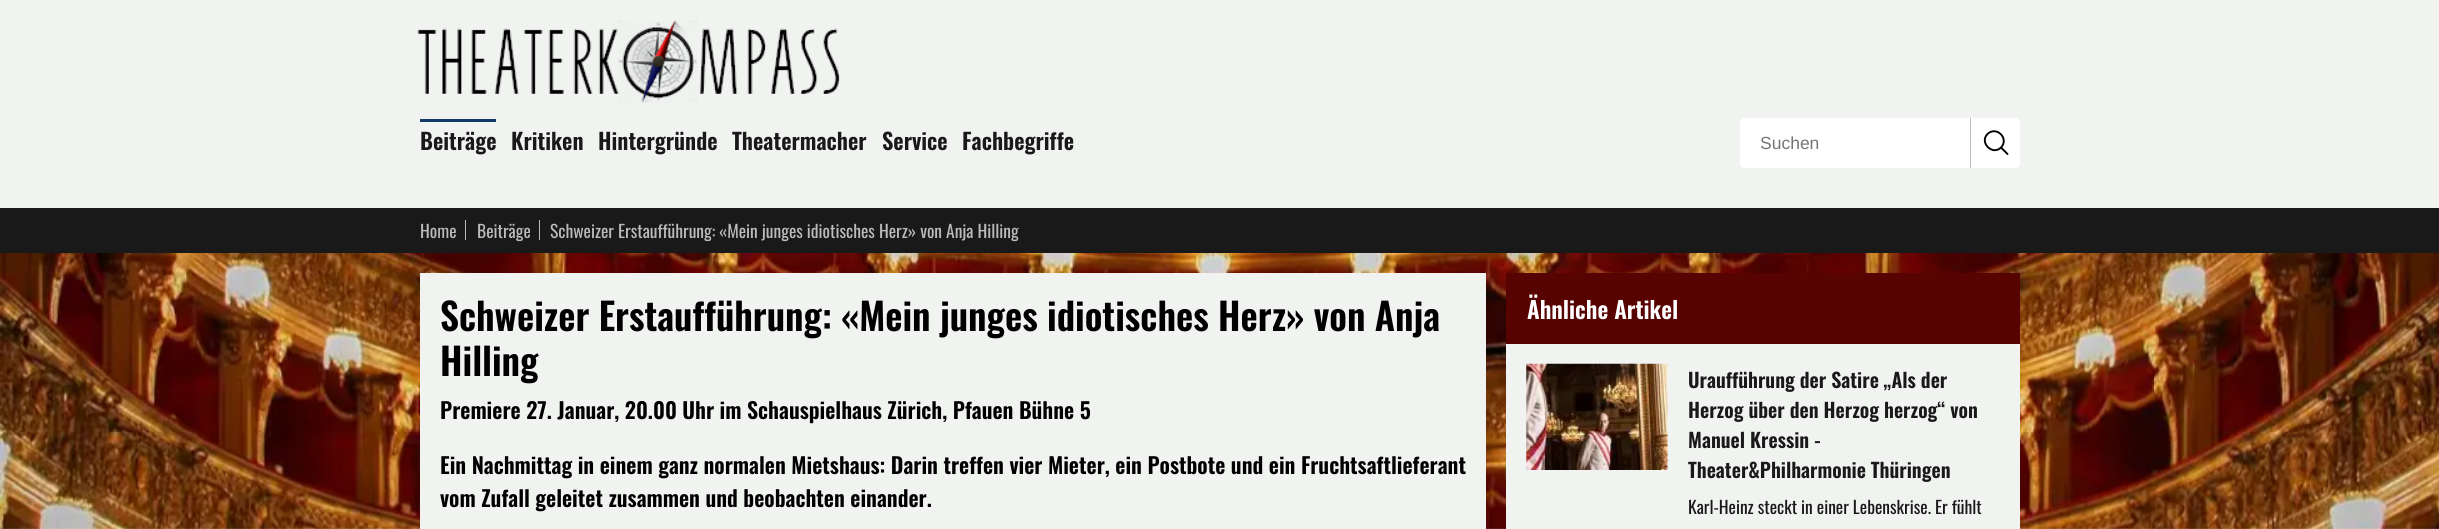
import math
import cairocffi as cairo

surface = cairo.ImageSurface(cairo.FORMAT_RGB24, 2439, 529)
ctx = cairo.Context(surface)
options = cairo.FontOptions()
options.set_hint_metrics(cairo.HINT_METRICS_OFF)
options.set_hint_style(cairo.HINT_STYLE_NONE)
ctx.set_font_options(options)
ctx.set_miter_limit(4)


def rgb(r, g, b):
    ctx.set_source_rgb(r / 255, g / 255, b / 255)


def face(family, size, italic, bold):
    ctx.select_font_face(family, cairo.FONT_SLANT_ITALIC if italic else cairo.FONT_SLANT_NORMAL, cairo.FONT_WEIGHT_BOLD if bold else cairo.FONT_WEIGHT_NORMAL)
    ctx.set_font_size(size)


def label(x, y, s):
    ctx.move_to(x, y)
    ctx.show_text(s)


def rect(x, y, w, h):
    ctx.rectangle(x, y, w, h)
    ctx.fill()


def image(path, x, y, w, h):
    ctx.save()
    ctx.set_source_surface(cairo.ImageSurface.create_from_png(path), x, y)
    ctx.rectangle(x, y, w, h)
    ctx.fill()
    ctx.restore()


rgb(255, 255, 255)
ctx.paint()
rgb(241, 243, 241)
rect(0, 0, 2439, 208)
image('image0.png', 417, 20, 423, 83)
rgb(20, 57, 102)
rect(420, 119, 76, 3)
face('Oswald SemiBold', 22.5, 0, 0)
rgb(25, 25, 25)
label(420, 150, 'Beiträge')
label(511, 150, 'Kritiken')
label(598, 150, 'Hintergründe')
label(732, 150, 'Theatermacher')
label(882, 150, 'Service')
label(962, 150, 'Fachbegriffe')
rgb(255, 255, 255)
ctx.new_path()
ctx.move_to(1745, 118)
ctx.line_to(1970, 118)
ctx.line_to(1970, 168)
ctx.line_to(1745, 168)
ctx.curve_to(1742, 168, 1740, 166, 1740, 163)
ctx.line_to(1740, 123)
ctx.curve_to(1740, 120, 1742, 118, 1745, 118)
ctx.close_path()
ctx.fill()
face('Liberation Sans', 17.5, 0, 0)
rgb(117, 117, 117)
label(1760, 149, 'Suchen')
rgb(255, 255, 255)
ctx.new_path()
ctx.move_to(1970, 118)
ctx.line_to(2015, 118)
ctx.curve_to(2018, 118, 2020, 120, 2020, 123)
ctx.line_to(2020, 163)
ctx.curve_to(2020, 166, 2018, 168, 2015, 168)
ctx.line_to(1970, 168)
ctx.close_path()
ctx.fill()
rgb(187, 187, 187)
rect(1970, 118, 1, 50)
ctx.new_path()
ctx.move_to(2007.5, 154)
ctx.line_to(2001, 147.5)
ctx.move_to(2001, 147.5)
ctx.curve_to(2009.5, 138.5, 1996.5, 125.5, 1987.5, 134)
ctx.curve_to(1979, 142.5, 1992.5, 156, 2001, 147.5)
ctx.close_path()
rgb(0, 0, 0)
ctx.set_line_width(1.9)
ctx.set_line_cap(cairo.LINE_CAP_ROUND)
ctx.set_line_join(cairo.LINE_JOIN_ROUND)
ctx.stroke()
rgb(25, 25, 25)
rect(0, 208, 2439, 45)
face('Oswald', 17.5, 0, 0)
rgb(187, 187, 187)
label(420, 238, 'Home')
rect(465, 220, 1, 20)
label(477, 238, 'Beiträge')
rect(539, 220, 1, 20)
label(550, 238, 'Schweizer Erstaufführung: «Mein junges idiotisches Herz» von Anja Hilling')
image('image1.png', 0, 253, 2439, 276)
rgb(241, 243, 241)
rect(420, 273, 1066, 256)
face('Oswald SemiBold', 37.5, 0, 0)
rgb(0, 0, 0)
label(440, 331, 'Schweizer Erstaufführung: «Mein junges idiotisches Herz» von Anja')
label(440, 376, 'Hilling')
face('Oswald SemiBold', 22, 0, 0)
label(440, 419, 'Premiere 27. Januar, 20.00 Uhr im Schauspielhaus Zürich, Pfauen Bühne 5')
label(440, 474, 'Ein Nachmittag in einem ganz normalen Mietshaus: Darin treffen vier Mieter, ein Postbote und ein Fruchtsaftlieferant')
label(440, 507, 'vom Zufall geleitet zusammen und beobachten einander.')
rgb(87, 3, 2)
rect(1506, 273, 514, 71)
face('Oswald SemiBold', 23.5, 0, 0)
rgb(255, 255, 255)
label(1527, 319, 'Ähnliche Artikel')
rgb(241, 243, 241)
rect(1506, 344, 514, 185)
image('image2.png', 1526, 363, 142, 107)
face('Oswald SemiBold', 20, 0, 0)
rgb(25, 25, 25)
label(1688, 388, 'Uraufführung der Satire „Als der')
label(1688, 418, 'Herzog über den Herzog herzog“ von')
label(1688, 448, 'Manuel Kressin -')
label(1688, 478, 'Theater&Philharmonie Thüringen')
face('Oswald', 17.5, 0, 0)
label(1688, 514, 'Karl-Heinz steckt in einer Lebenskrise. Er fühlt')
surface.write_to_png('render.png')
